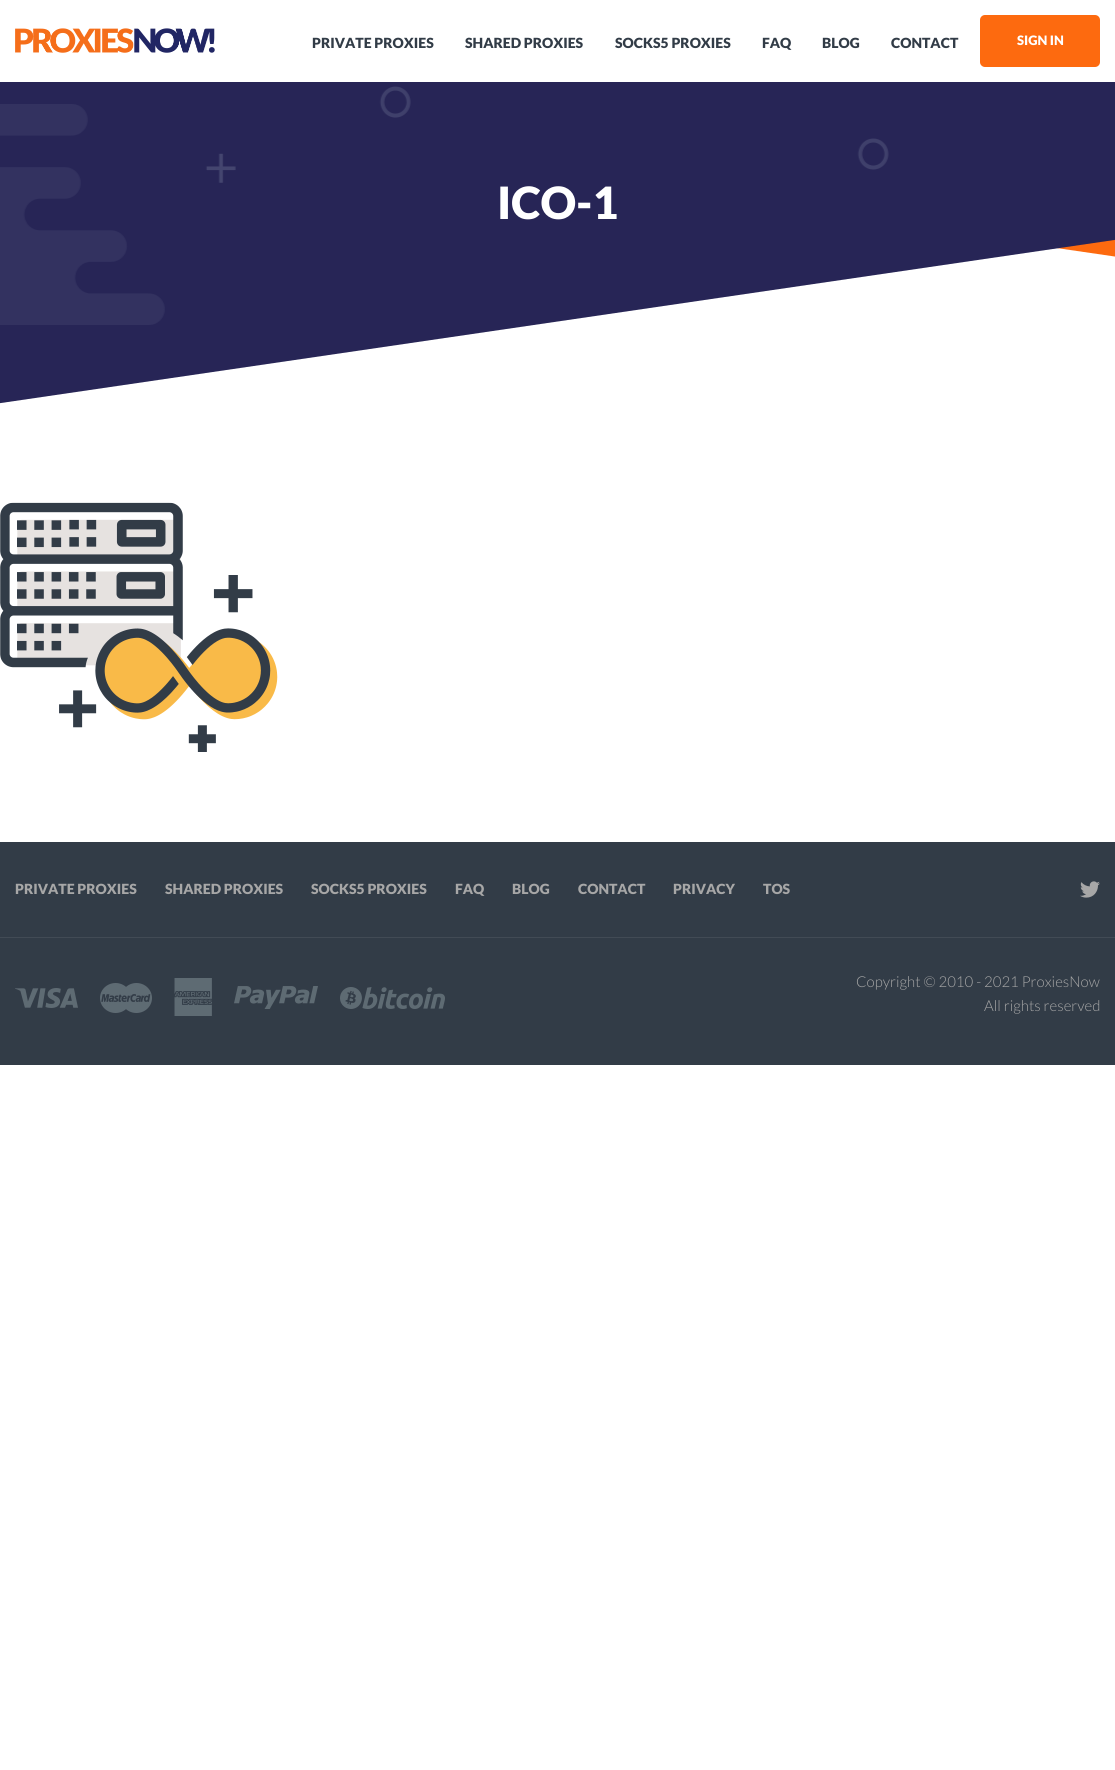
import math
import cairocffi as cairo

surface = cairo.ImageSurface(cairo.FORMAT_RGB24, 1115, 1770)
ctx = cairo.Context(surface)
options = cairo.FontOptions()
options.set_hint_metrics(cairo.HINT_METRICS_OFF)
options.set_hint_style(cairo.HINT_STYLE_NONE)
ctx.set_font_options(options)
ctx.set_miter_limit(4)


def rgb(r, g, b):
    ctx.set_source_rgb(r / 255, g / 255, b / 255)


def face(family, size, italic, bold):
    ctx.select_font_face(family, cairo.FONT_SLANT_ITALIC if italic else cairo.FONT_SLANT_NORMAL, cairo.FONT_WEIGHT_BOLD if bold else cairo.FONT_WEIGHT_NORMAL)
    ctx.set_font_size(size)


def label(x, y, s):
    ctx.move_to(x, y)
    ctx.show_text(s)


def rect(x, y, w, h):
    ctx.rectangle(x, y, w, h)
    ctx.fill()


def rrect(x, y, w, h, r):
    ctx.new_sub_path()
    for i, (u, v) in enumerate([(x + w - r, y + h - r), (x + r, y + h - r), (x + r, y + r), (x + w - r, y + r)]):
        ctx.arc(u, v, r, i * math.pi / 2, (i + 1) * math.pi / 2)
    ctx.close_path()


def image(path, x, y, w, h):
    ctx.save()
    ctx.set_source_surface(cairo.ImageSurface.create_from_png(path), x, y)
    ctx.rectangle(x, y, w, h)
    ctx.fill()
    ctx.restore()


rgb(255, 255, 255)
ctx.paint()
rgb(253, 106, 15)
ctx.new_path()
ctx.move_to(-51, -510)
ctx.line_to(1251, -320)
ctx.line_to(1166, 264)
ctx.line_to(-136, 74)
ctx.close_path()
ctx.fill()
rgb(39, 37, 86)
ctx.new_path()
ctx.move_to(-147, -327)
ctx.line_to(1055, -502)
ctx.line_to(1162, 233)
ctx.line_to(-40, 409)
ctx.close_path()
ctx.fill()
rgb(255, 255, 255)
rect(0, 0, 1115, 82)
image('image0.png', 15, 28, 200, 25)
face('Lato Black', 14, 0, 0)
rgb(50, 60, 71)
label(312, 48, 'PRIVATE PROXIES')
label(465, 48, 'SHARED PROXIES')
label(615, 48, 'SOCKS5 PROXIES')
label(762, 48, 'FAQ')
label(822, 48, 'BLOG')
label(891, 48, 'CONTACT')
rgb(253, 106, 15)
rrect(980, 15, 120, 52, 5)
ctx.fill()
face('Lato Black', 13, 0, 0)
rgb(255, 255, 255)
label(1017, 45, 'SIGN IN')
image('image1.png', 0, 86, 889, 239)
face('Lato Black', 44.5, 0, 0)
label(497, 219, 'ICO-1')
image('image2.png', 0, 502, 278, 250)
rgb(50, 60, 71)
rect(0, 842, 1115, 223)
rgb(66, 75, 85)
rect(0, 937, 1115, 1)
face('Lato Black', 14, 0, 0)
rgb(167, 167, 167)
label(15, 894, 'PRIVATE PROXIES')
label(165, 894, 'SHARED PROXIES')
label(311, 894, 'SOCKS5 PROXIES')
label(455, 894, 'FAQ')
label(512, 894, 'BLOG')
label(578, 894, 'CONTACT')
label(673, 894, 'PRIVACY')
label(763, 894, 'TOS')
image('image3.png', 1080, 881, 20, 17)
image('image4.png', 15, 988, 63, 20)
image('image5.png', 100, 983, 52, 30)
image('image6.png', 174, 978, 38, 38)
image('image7.png', 234, 986, 84, 23)
image('image8.png', 340, 987, 105, 22)
face('Lato Light', 15, 0, 0)
label(856, 987, 'Copyright © 2010 - 2021 ProxiesNow')
label(984, 1011, 'All rights reserved')
surface.write_to_png('render.png')
